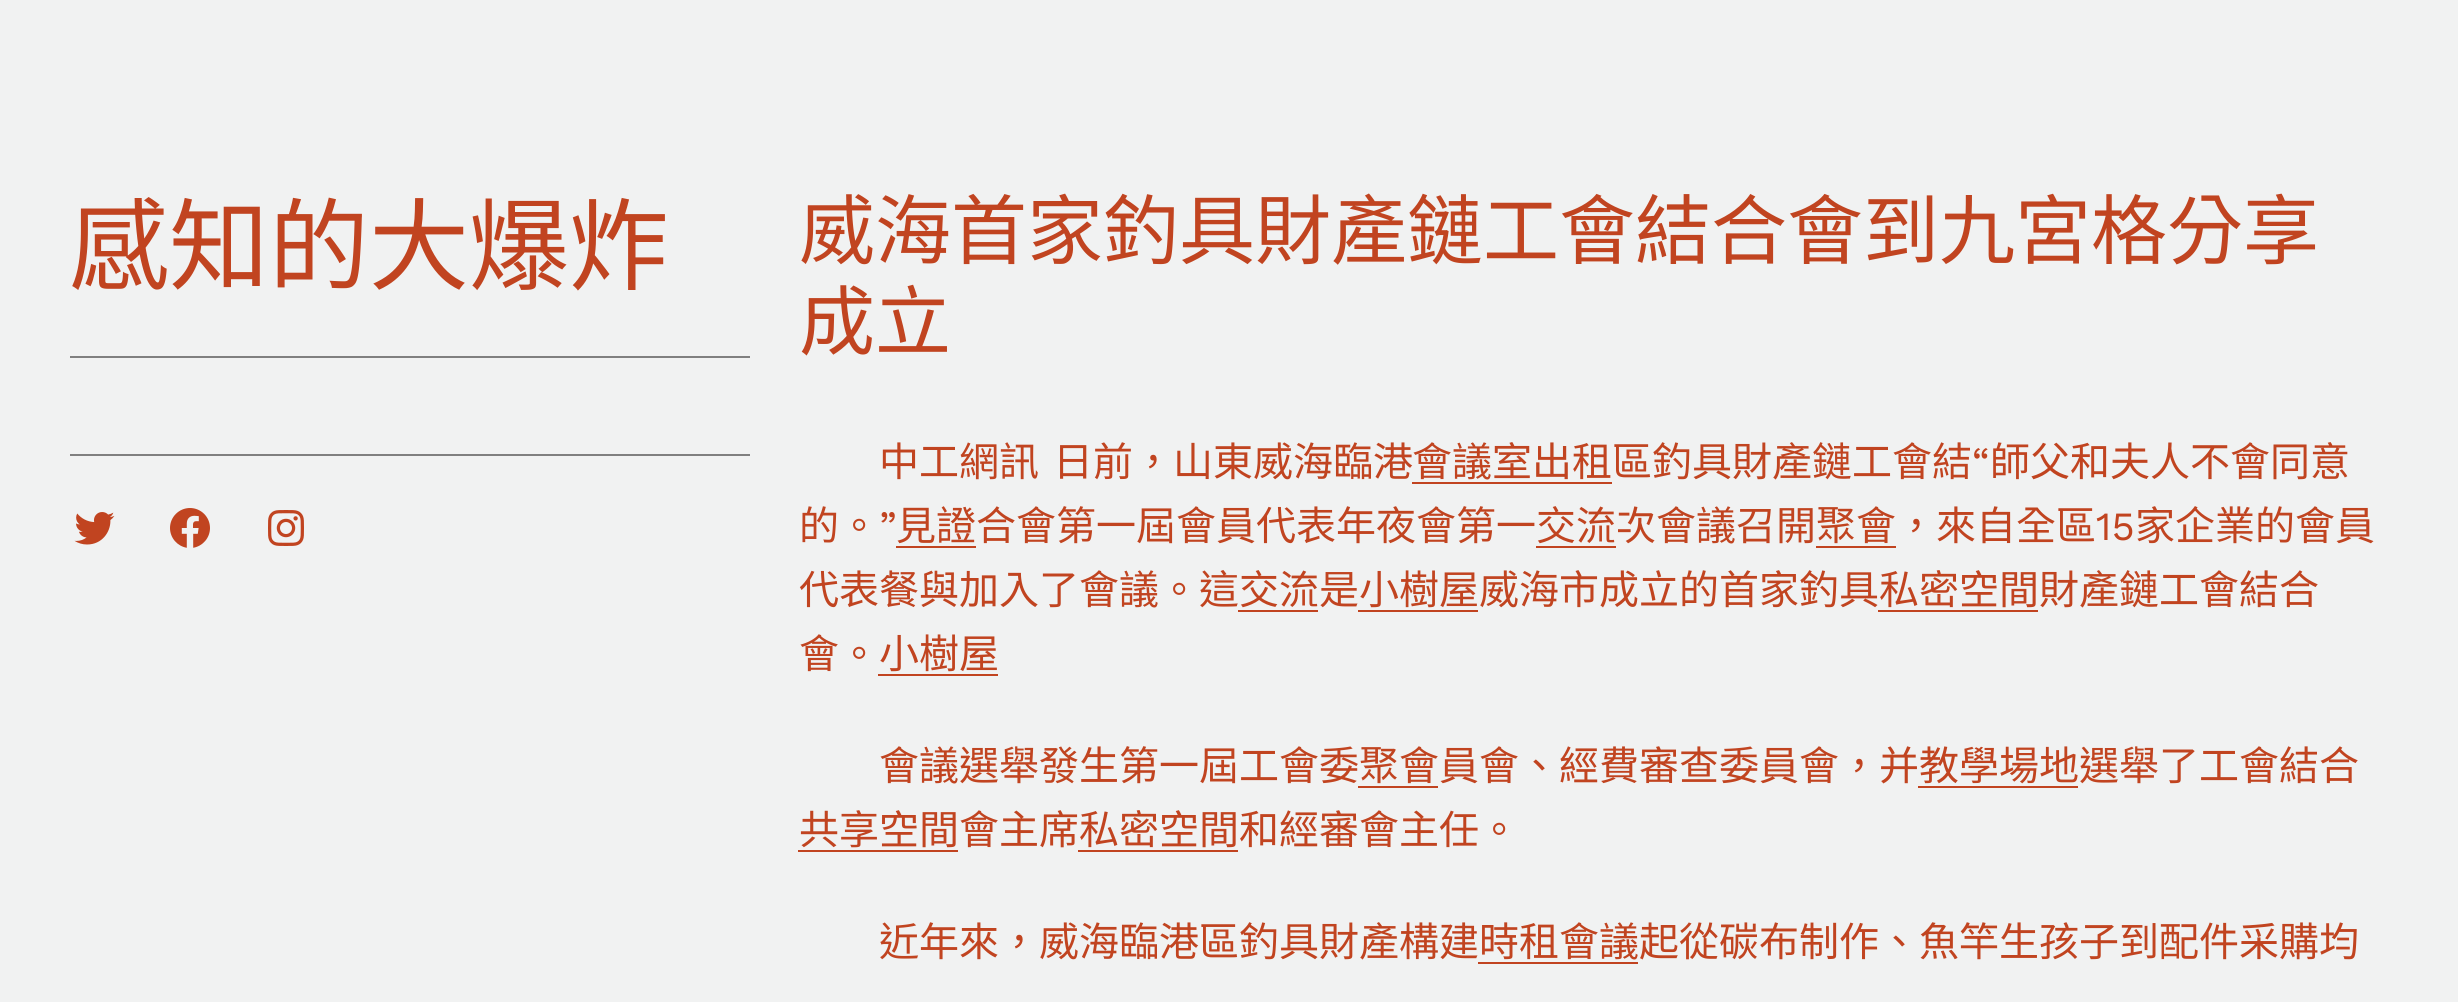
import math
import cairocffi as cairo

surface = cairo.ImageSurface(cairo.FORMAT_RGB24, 2458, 1002)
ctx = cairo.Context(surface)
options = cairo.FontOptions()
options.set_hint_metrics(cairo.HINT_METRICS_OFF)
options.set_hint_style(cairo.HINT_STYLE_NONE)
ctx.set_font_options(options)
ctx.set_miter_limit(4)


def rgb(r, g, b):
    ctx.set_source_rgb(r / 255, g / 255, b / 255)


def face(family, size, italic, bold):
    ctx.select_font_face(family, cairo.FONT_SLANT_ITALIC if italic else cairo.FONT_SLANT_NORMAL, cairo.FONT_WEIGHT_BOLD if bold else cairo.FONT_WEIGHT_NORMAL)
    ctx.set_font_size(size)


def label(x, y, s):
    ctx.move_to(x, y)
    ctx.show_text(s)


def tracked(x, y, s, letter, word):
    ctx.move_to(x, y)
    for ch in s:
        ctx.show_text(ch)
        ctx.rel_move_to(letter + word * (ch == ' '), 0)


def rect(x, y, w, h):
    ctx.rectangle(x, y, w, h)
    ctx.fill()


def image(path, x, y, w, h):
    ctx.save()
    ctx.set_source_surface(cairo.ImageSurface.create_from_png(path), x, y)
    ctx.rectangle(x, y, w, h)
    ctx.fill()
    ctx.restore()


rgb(241, 242, 242)
ctx.paint()
face('Noto Sans CJK TC', 100, 0, 0)
rgb(193, 68, 32)
label(69, 282, '感知的大爆炸')
rgb(128, 128, 128)
rect(70, 356, 680, 2)
rect(70, 454, 680, 2)
image('image0.png', 74, 512, 41, 33)
image('image1.png', 170, 508, 40, 40)
image('image2.png', 268, 510, 36, 36)
face('Noto Sans CJK TC', 76, 0, 0)
rgb(193, 68, 32)
label(799, 258, '威海首家釣具財產鏈工會結合會到九宮格分享')
label(799, 349, '成立')
face('Noto Sans CJK TC', 40, 0, 0)
tracked(879, 476, '中工網訊 日前，山東威海臨港', 0, 5)
label(1412, 476, '會議室出租區釣具財產鏈工會結')
rect(1412, 482, 200, 2)
face('Work Sans', 40, 0, 0)
label(1972, 476, '“')
face('Noto Sans CJK TC', 40, 0, 0)
label(1990, 476, '師父和夫人不會同意')
label(799, 540, '的。')
face('Work Sans', 40, 0, 0)
label(879, 540, '”')
face('Noto Sans CJK TC', 40, 0, 0)
label(896, 540, '見證合會第一屆會員代表年夜會第一交流次會議召開聚會，來自全區')
rect(896, 546, 80, 2)
face('Work Sans', 40, 0, 0)
label(2096, 540, '15')
face('Noto Sans CJK TC', 40, 0, 0)
label(2135, 540, '家企業的會員')
rect(1536, 546, 80, 2)
rect(1816, 546, 80, 2)
label(799, 604, '代表餐與加入了會議。這交流是小樹屋威海市成立的首家釣具私密空間財產鏈工會結合')
rect(1238, 610, 80, 2)
rect(1358, 610, 120, 2)
rect(1878, 610, 160, 2)
label(799, 668, '會。小樹屋')
rect(878, 674, 120, 2)
label(879, 780, '會議選舉發生第一屆工會委聚會員會、經費審查委員會，并教學場地選舉了工會結合')
rect(1358, 786, 80, 2)
rect(1918, 786, 160, 2)
label(799, 844, '共享空間會主席私密空間和經審會主任。')
rect(798, 850, 160, 2)
rect(1078, 850, 160, 2)
label(879, 956, '近年來，威海臨港區釣具財產構建時租會議起從碳布制作、魚竿生孩子到配件采購均')
rect(1478, 962, 160, 2)
surface.write_to_png('render.png')
